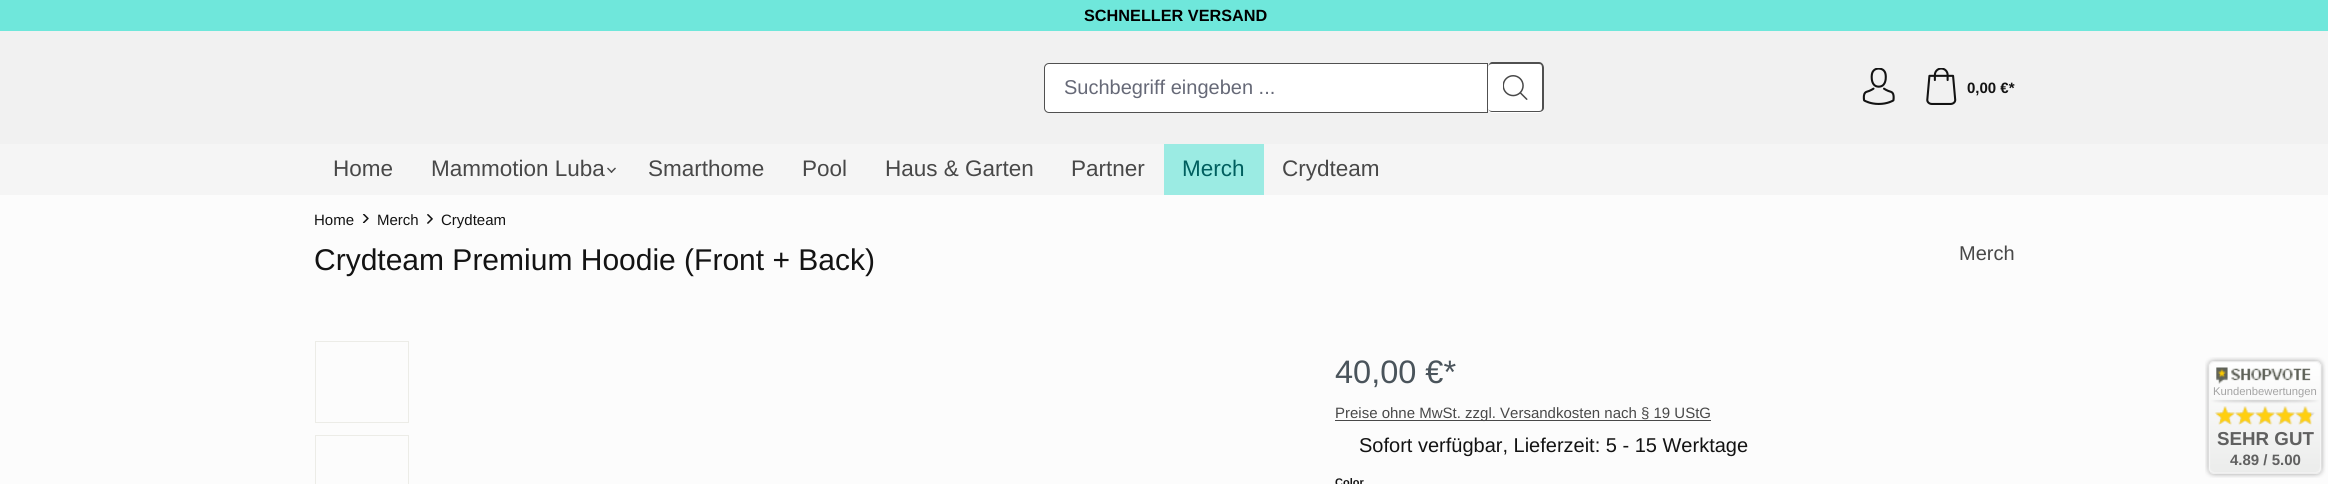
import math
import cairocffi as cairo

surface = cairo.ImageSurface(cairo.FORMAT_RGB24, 2328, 484)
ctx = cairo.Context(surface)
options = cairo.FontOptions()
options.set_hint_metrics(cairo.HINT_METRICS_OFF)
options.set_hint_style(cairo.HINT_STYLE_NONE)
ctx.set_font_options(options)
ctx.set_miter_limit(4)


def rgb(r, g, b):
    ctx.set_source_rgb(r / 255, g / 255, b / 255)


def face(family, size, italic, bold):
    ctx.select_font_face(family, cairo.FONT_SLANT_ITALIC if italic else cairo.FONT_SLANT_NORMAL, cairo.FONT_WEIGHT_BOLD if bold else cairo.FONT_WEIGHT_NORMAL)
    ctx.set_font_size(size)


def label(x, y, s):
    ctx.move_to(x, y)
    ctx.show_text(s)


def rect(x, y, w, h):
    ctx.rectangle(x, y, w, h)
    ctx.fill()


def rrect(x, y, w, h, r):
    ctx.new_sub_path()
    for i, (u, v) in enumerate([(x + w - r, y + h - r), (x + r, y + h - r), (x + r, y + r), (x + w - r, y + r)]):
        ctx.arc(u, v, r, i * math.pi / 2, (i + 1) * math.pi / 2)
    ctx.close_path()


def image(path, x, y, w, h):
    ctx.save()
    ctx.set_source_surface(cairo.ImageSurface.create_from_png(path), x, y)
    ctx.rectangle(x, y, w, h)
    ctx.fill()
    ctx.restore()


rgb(252, 252, 252)
ctx.paint()
rgb(111, 231, 219)
rect(0, 0, 2328, 31)
face('Liberation Sans', 16.25, 0, 1)
rgb(0, 0, 0)
label(1084, 21, 'SCHNELLER VERSAND')
rgb(241, 241, 241)
rect(0, 31, 2328, 113)
rgb(255, 255, 255)
ctx.new_path()
ctx.move_to(1049, 63.5)
ctx.line_to(1487.5, 63.5)
ctx.line_to(1487.5, 112.5)
ctx.line_to(1049, 112.5)
ctx.curve_to(1046.5, 112.5, 1044.5, 110.5, 1044.5, 108)
ctx.line_to(1044.5, 68)
ctx.curve_to(1044.5, 65.5, 1046.5, 63.5, 1049, 63.5)
ctx.close_path()
ctx.fill_preserve()
rgb(80, 80, 80)
ctx.set_line_width(1)
ctx.stroke()
face('Liberation Sans', 20, 0, 0)
rgb(102, 105, 119)
label(1064, 94, 'Suchbegriff eingeben ...')
rgb(255, 255, 255)
rrect(1488, 63, 56, 50, 5)
ctx.fill()
rgb(80, 80, 80)
ctx.set_fill_rule(cairo.FILL_RULE_EVEN_ODD)
ctx.new_path()
ctx.move_to(1492, 62)
ctx.line_to(1539, 62)
ctx.curve_to(1542, 62, 1544, 65, 1544, 68)
ctx.line_to(1544, 108)
ctx.curve_to(1544, 110, 1542, 112, 1539, 112)
ctx.line_to(1492, 112)
ctx.curve_to(1490, 112, 1488, 110, 1488, 108)
ctx.line_to(1488, 68)
ctx.curve_to(1488, 65, 1490, 62, 1492, 62)
ctx.close_path()
ctx.move_to(1492, 64)
ctx.line_to(1539, 64)
ctx.curve_to(1541, 64, 1542, 65, 1542, 68)
ctx.line_to(1542, 108)
ctx.curve_to(1542, 110, 1541, 111, 1539, 111)
ctx.line_to(1492, 111)
ctx.curve_to(1490, 111, 1488, 110, 1488, 108)
ctx.line_to(1488, 68)
ctx.curve_to(1488, 65, 1490, 64, 1492, 64)
ctx.close_path()
ctx.fill()
image('image0.png', 1503, 75, 25, 25)
image('image1.png', 1862, 68, 33, 37)
image('image2.png', 1926, 68, 31, 37)
face('Liberation Sans', 15, 0, 1)
rgb(19, 19, 19)
label(1967, 93, '0,00 €*')
rgb(245, 245, 245)
rect(0, 144, 2328, 51)
face('Liberation Sans', 22.5, 0, 0)
rgb(72, 72, 72)
label(333, 176, 'Home')
label(431, 176, 'Mammotion Luba')
ctx.set_fill_rule(cairo.FILL_RULE_WINDING)
ctx.new_path()
ctx.move_to(615, 167.5)
ctx.line_to(616, 168.5)
ctx.line_to(611.5, 173)
ctx.line_to(610.5, 172)
ctx.close_path()
ctx.fill()
ctx.new_path()
ctx.move_to(608, 167.5)
ctx.line_to(612.5, 172)
ctx.line_to(611.5, 173)
ctx.line_to(607, 168.5)
ctx.close_path()
ctx.fill()
label(648, 176, 'Smarthome')
label(802, 176, 'Pool')
label(885, 176, 'Haus & Garten')
label(1071, 176, 'Partner')
rgb(155, 235, 227)
rect(1164, 144, 100, 51)
rgb(0, 95, 95)
label(1182, 176, 'Merch')
rgb(72, 72, 72)
label(1282, 176, 'Crydteam')
face('Liberation Sans', 15, 0, 0)
rgb(19, 19, 19)
label(314, 225, 'Home')
image('image3.png', 362, 214, 7, 9)
label(377, 225, 'Merch')
image('image4.png', 427, 214, 6, 10)
label(441, 225, 'Crydteam')
face('Liberation Sans', 30, 0, 0)
label(314, 270, 'Crydteam Premium Hoodie (Front + Back)')
face('Liberation Sans', 20, 0, 0)
rgb(72, 72, 72)
label(1959, 260, 'Merch')
ctx.rectangle(315.5, 341.5, 93, 81)
rgb(236, 236, 231)
ctx.stroke()
ctx.rectangle(315.5, 435.5, 93, 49)
ctx.stroke()
face('Liberation Sans', 32.5, 0, 0)
rgb(74, 84, 91)
label(1335, 383, '40,00 €*')
rgb(72, 72, 72)
rect(1335, 420, 376, 1)
face('Liberation Sans', 15, 0, 0)
label(1335, 418, 'Preise ohne MwSt. zzgl. Versandkosten nach § 19 UStG')
face('Liberation Sans', 20, 0, 0)
rgb(19, 19, 19)
label(1359, 452, 'Sofort verfügbar, Lieferzeit: 5 - 15 Werktage')
face('Liberation Sans', 11, 0, 1)
label(1335, 486, 'Color')
image('image5.png', 2205, 357, 121, 121)
face('Liberation Sans', 11.25, 0, 0)
rgb(164, 164, 164)
label(2213, 395, 'Kundenbewertungen')
image('image6.png', 2215, 406, 97, 19)
face('Liberation Sans', 18.75, 0, 1)
rgb(96, 96, 96)
label(2217, 445, 'SEHR GUT')
face('Liberation Sans', 15, 0, 1)
label(2230, 465, '4.89 / 5.00')
surface.write_to_png('render.png')
